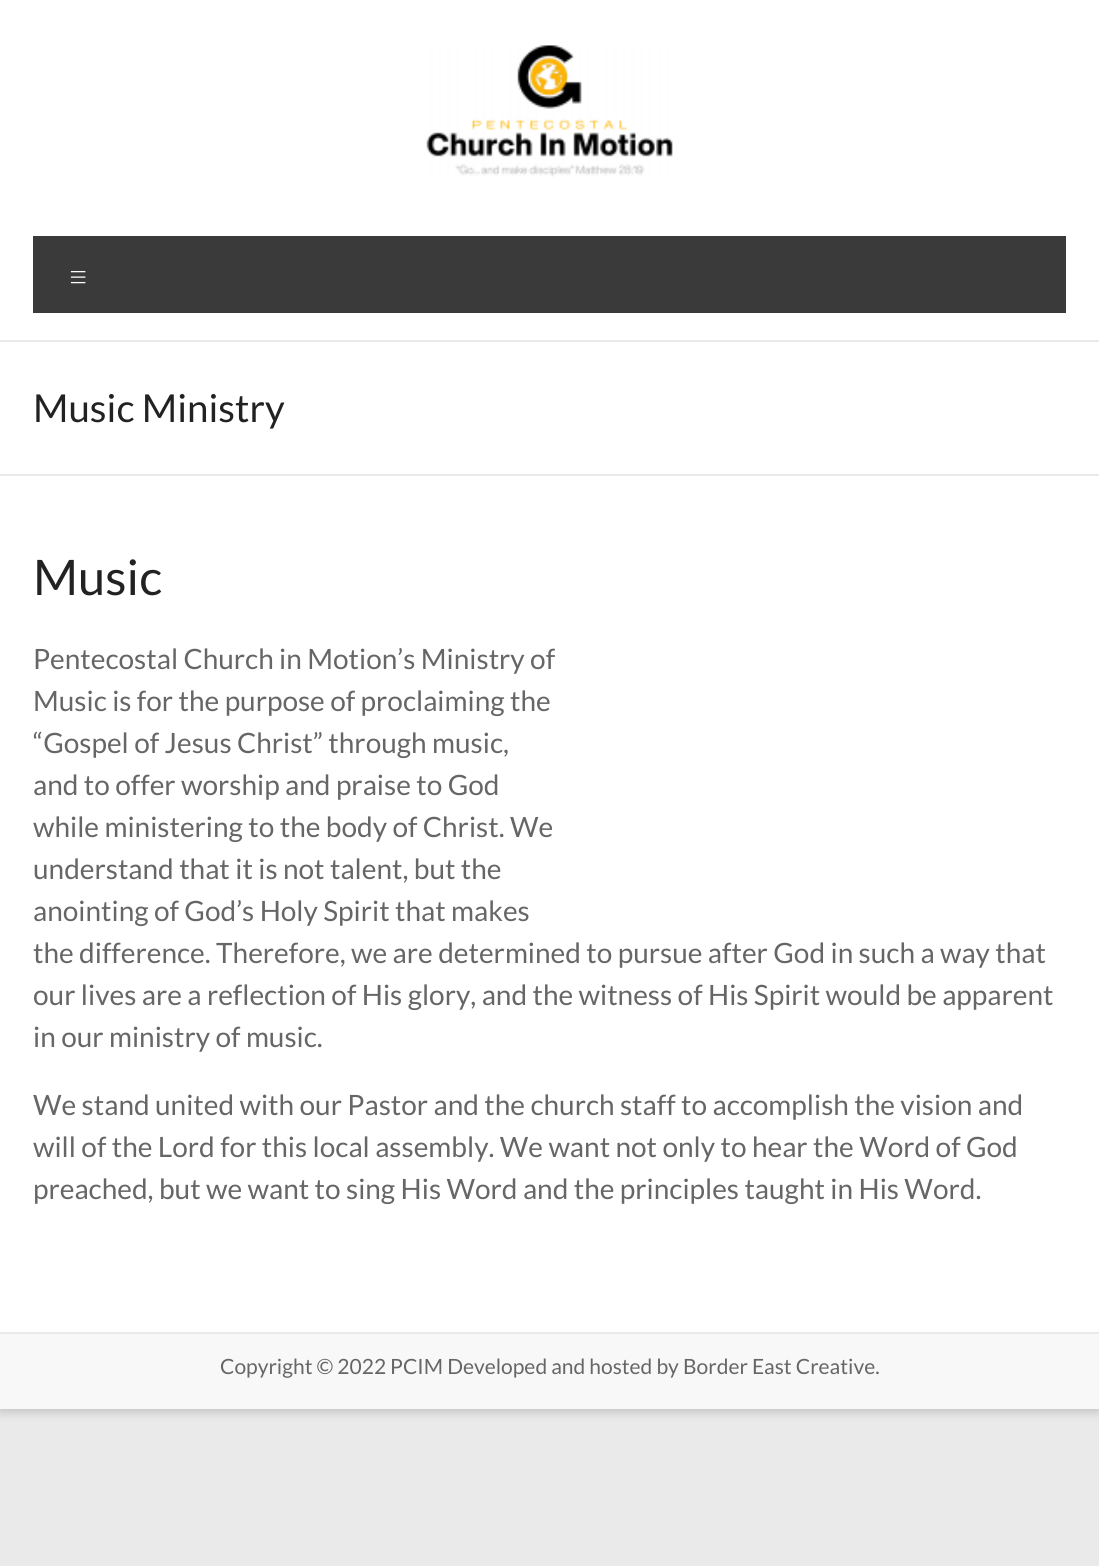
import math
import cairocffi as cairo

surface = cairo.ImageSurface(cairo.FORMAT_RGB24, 1099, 1566)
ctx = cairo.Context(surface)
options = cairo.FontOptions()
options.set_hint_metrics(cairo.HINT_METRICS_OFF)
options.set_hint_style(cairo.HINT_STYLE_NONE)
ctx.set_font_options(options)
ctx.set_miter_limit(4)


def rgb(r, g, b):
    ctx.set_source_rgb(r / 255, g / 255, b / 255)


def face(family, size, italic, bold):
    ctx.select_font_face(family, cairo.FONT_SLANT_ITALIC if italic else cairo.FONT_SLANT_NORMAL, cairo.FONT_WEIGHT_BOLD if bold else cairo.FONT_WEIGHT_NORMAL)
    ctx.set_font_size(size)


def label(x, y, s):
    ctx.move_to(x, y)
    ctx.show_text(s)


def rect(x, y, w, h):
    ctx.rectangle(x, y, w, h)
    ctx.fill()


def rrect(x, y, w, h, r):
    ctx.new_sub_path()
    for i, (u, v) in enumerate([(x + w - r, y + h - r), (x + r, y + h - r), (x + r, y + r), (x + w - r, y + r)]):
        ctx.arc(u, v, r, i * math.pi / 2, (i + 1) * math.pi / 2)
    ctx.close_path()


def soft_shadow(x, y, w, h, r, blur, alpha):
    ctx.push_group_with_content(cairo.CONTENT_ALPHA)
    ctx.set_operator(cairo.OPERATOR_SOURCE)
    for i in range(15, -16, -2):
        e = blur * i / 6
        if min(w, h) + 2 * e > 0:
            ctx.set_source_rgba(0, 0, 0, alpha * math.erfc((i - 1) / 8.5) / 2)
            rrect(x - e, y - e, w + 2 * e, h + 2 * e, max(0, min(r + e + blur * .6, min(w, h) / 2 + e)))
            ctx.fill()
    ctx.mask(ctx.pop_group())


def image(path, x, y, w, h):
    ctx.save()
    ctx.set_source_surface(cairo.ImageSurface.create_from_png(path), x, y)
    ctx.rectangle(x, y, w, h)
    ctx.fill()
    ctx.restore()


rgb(234, 234, 234)
ctx.paint()
rgb(100, 100, 100)
soft_shadow(0, 4, 1099, 1408, 0, 5, 0.3)
rgb(255, 255, 255)
rect(0, 0, 1099, 1332)
rgb(234, 234, 234)
rect(0, 340, 1099, 2)
image('image0.png', 426, 45, 247, 132)
rgb(58, 58, 58)
rect(33, 236, 1033, 77)
face('Lato Light', 35, 0, 0)
rgb(255, 255, 255)
label(68, 289, '≡')
rgb(234, 234, 234)
rect(0, 474, 1099, 2)
face('Lato', 38.5, 0, 0)
rgb(34, 34, 34)
label(33, 422, 'Music Ministry')
face('Lato', 49, 0, 0)
label(33, 595, 'Music')
face('Lato', 28, 0, 0)
rgb(102, 102, 102)
label(33, 669, 'Pentecostal Church in Motion’s Ministry of')
label(33, 711, 'Music is for the purpose of proclaiming the')
label(33, 753, '“Gospel of Jesus Christ” through music,')
label(33, 795, 'and to offer worship and praise to God')
label(33, 837, 'while ministering to the body of Christ. We')
label(33, 879, 'understand that it is not talent, but the')
label(33, 921, 'anointing of God’s Holy Spirit that makes')
label(33, 963, 'the difference. Therefore, we are determined to pursue after God in such a way that')
label(33, 1005, 'our lives are a reflection of His glory, and the witness of His Spirit would be apparent')
label(33, 1047, 'in our ministry of music.')
label(33, 1115, 'We stand united with our Pastor and the church staff to accomplish the vision and')
label(33, 1157, 'will of the Lord for this local assembly. We want not only to hear the Word of God')
label(33, 1199, 'preached, but we want to sing His Word and the principles taught in His Word.')
rgb(248, 248, 248)
rect(0, 1334, 1099, 75)
rgb(234, 234, 234)
rect(0, 1332, 1099, 2)
face('Lato', 21, 0, 0)
rgb(102, 102, 102)
label(220, 1374, 'Copyright © 2022 PCIM Developed and hosted by Border East Creative.')
surface.write_to_png('render.png')
